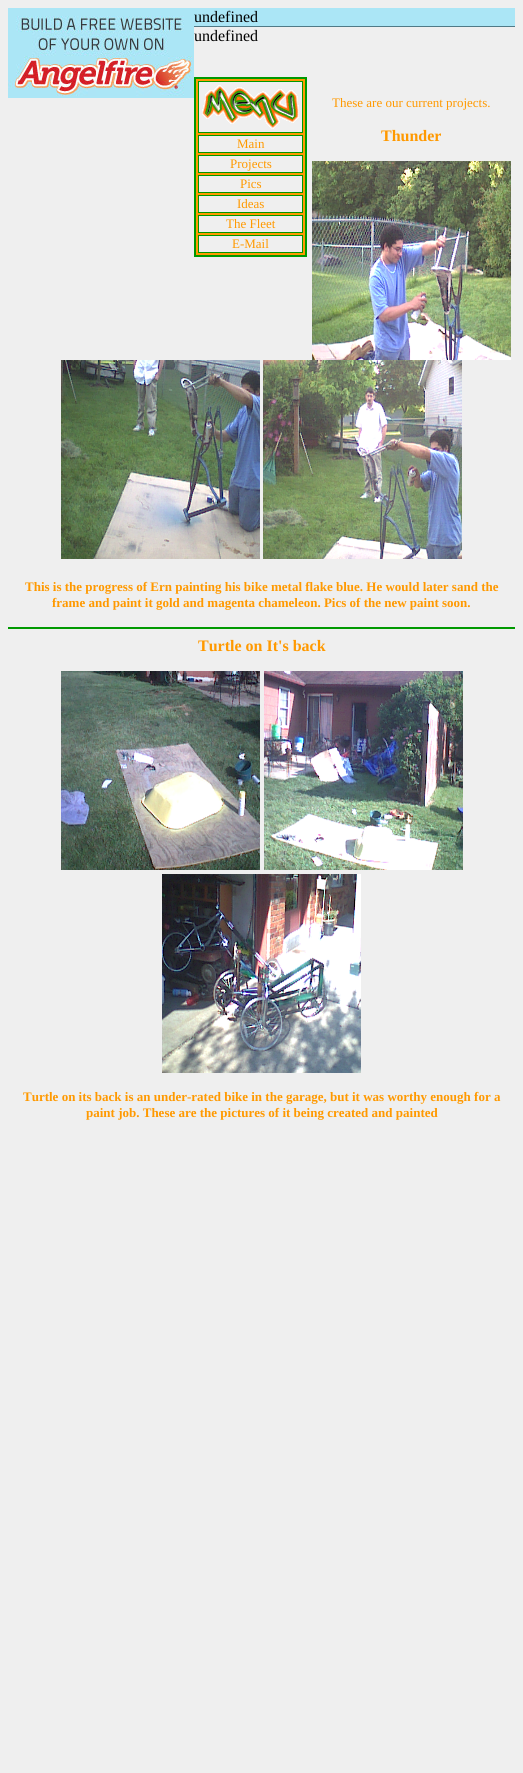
import math
import cairocffi as cairo

surface = cairo.ImageSurface(cairo.FORMAT_RGB24, 523, 1773)
ctx = cairo.Context(surface)
options = cairo.FontOptions()
options.set_hint_metrics(cairo.HINT_METRICS_OFF)
options.set_hint_style(cairo.HINT_STYLE_NONE)
ctx.set_font_options(options)
ctx.set_miter_limit(4)


def rgb(r, g, b):
    ctx.set_source_rgb(r / 255, g / 255, b / 255)


def face(family, size, italic, bold):
    ctx.select_font_face(family, cairo.FONT_SLANT_ITALIC if italic else cairo.FONT_SLANT_NORMAL, cairo.FONT_WEIGHT_BOLD if bold else cairo.FONT_WEIGHT_NORMAL)
    ctx.set_font_size(size)


def label(x, y, s):
    ctx.move_to(x, y)
    ctx.show_text(s)


def rect(x, y, w, h):
    ctx.rectangle(x, y, w, h)
    ctx.fill()


def image(path, x, y, w, h):
    ctx.save()
    ctx.set_source_surface(cairo.ImageSurface.create_from_png(path), x, y)
    ctx.rectangle(x, y, w, h)
    ctx.fill()
    ctx.restore()


rgb(239, 239, 239)
ctx.paint()
rgb(171, 230, 246)
rect(8, 8, 507, 18)
rgb(80, 122, 135)
rect(194, 26, 321, 1)
image('image0.png', 8, 16, 186, 82)
face('Liberation Serif', 16, 0, 0)
rgb(0, 0, 0)
label(194, 22, 'undefined')
label(194, 41, 'undefined')
face('Liberation Serif', 13, 0, 0)
rgb(255, 153, 0)
label(332, 107, 'These are our current projects.')
ctx.rectangle(195, 78, 111, 178)
ctx.fill_preserve()
rgb(0, 153, 0)
ctx.stroke()
rgb(239, 239, 239)
ctx.rectangle(198.5, 81.5, 104, 51)
ctx.fill_preserve()
rgb(0, 153, 0)
ctx.set_line_width(1)
ctx.stroke()
image('image1.png', 202, 85, 97, 44)
rgb(239, 239, 239)
ctx.rectangle(198.5, 135.5, 104, 17)
ctx.fill_preserve()
rgb(0, 153, 0)
ctx.stroke()
rgb(255, 153, 0)
label(237, 148, 'Main')
rgb(239, 239, 239)
ctx.rectangle(198.5, 155.5, 104, 17)
ctx.fill_preserve()
rgb(0, 153, 0)
ctx.stroke()
rgb(255, 153, 0)
label(230, 168, 'Projects')
rgb(239, 239, 239)
ctx.rectangle(198.5, 175.5, 104, 17)
ctx.fill_preserve()
rgb(0, 153, 0)
ctx.stroke()
rgb(255, 153, 0)
label(240, 188, 'Pics')
rgb(239, 239, 239)
ctx.rectangle(198.5, 195.5, 104, 17)
ctx.fill_preserve()
rgb(0, 153, 0)
ctx.stroke()
rgb(255, 153, 0)
label(237, 208, 'Ideas')
rgb(239, 239, 239)
ctx.rectangle(198.5, 215.5, 104, 17)
ctx.fill_preserve()
rgb(0, 153, 0)
ctx.stroke()
rgb(255, 153, 0)
label(226, 228, 'The Fleet')
rgb(239, 239, 239)
ctx.rectangle(198.5, 235.5, 104, 17)
ctx.fill_preserve()
rgb(0, 153, 0)
ctx.stroke()
rgb(255, 153, 0)
label(232, 248, 'E-Mail')
face('Liberation Serif', 16, 0, 1)
label(381, 141, 'Thunder')
image('image2.png', 312, 161, 199, 199)
image('image3.png', 61, 360, 199, 199)
image('image4.png', 263, 360, 199, 199)
face('Liberation Serif', 13, 0, 1)
label(25, 591, 'This is the progress of Ern painting his bike metal flake blue. He would later sand the')
label(52, 607, 'frame and paint it gold and magenta chameleon. Pics of the new paint soon.')
rgb(0, 153, 0)
rect(8, 627, 507, 2)
face('Liberation Serif', 16, 0, 1)
rgb(255, 153, 0)
label(198, 651, 'Turtle on It\'s back')
image('image5.png', 61, 671, 199, 199)
image('image6.png', 264, 671, 199, 199)
image('image7.png', 162, 874, 199, 199)
face('Liberation Serif', 13, 0, 1)
label(23, 1101, 'Turtle on its back is an under-rated bike in the garage, but it was worthy enough for a')
label(86, 1117, 'paint job. These are the pictures of it being created and painted')
surface.write_to_png('render.png')
